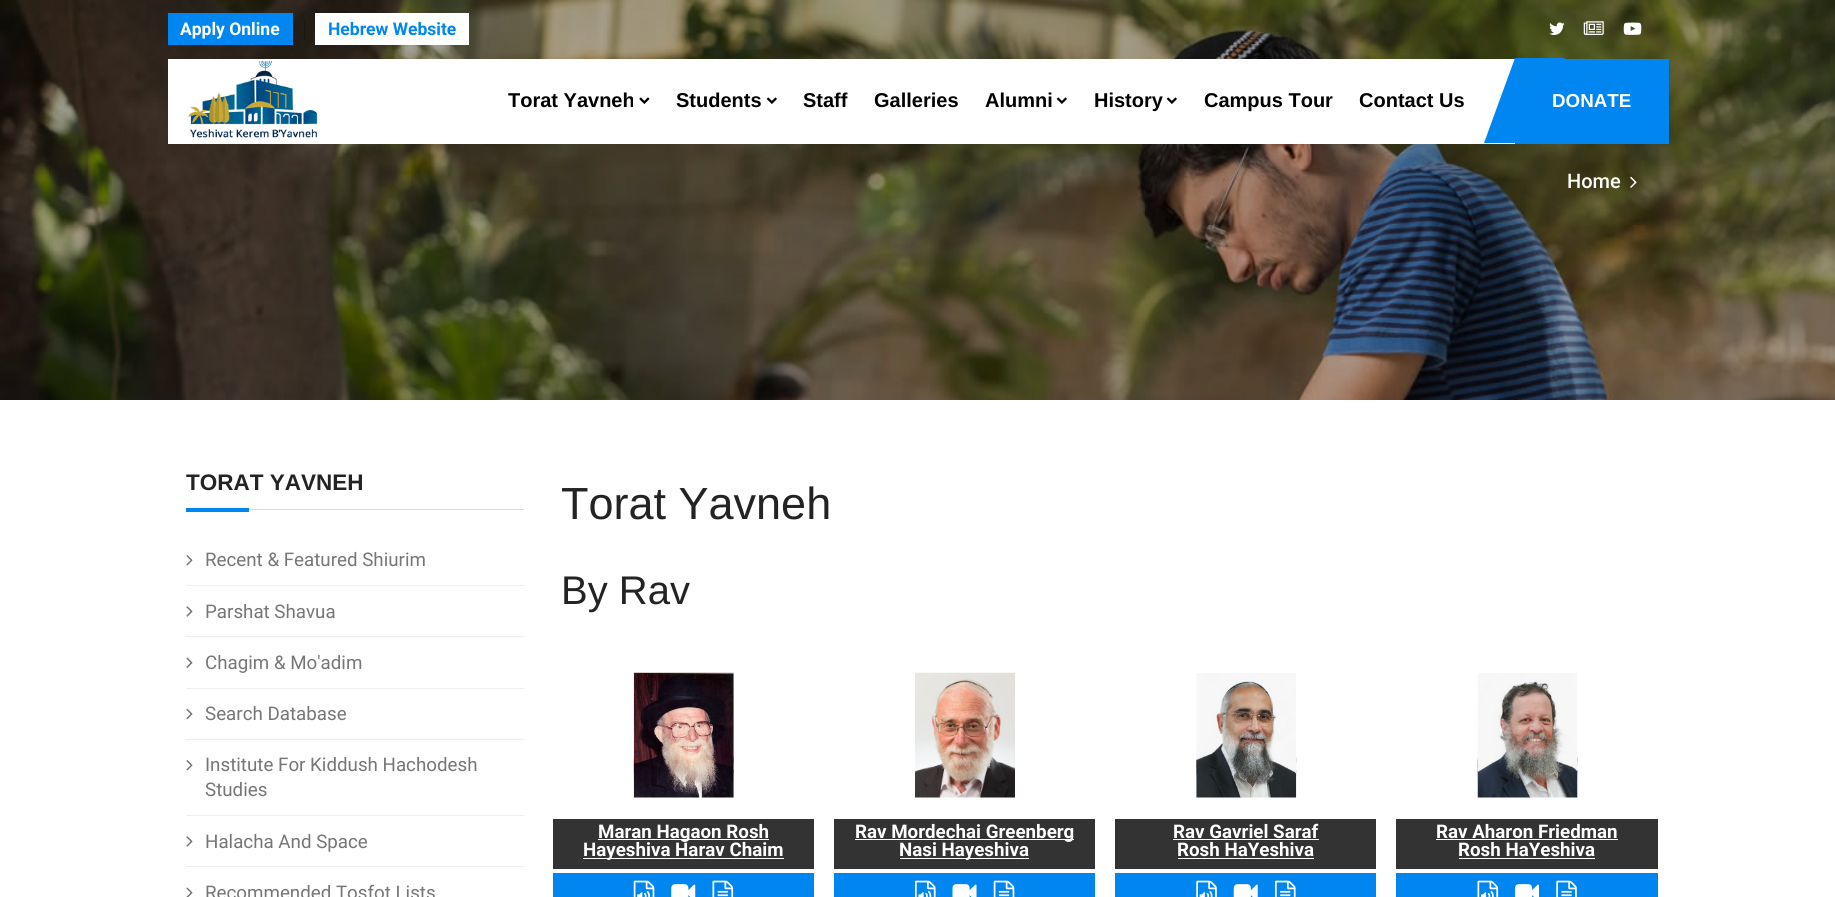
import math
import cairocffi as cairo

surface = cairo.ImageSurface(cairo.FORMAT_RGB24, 1835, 897)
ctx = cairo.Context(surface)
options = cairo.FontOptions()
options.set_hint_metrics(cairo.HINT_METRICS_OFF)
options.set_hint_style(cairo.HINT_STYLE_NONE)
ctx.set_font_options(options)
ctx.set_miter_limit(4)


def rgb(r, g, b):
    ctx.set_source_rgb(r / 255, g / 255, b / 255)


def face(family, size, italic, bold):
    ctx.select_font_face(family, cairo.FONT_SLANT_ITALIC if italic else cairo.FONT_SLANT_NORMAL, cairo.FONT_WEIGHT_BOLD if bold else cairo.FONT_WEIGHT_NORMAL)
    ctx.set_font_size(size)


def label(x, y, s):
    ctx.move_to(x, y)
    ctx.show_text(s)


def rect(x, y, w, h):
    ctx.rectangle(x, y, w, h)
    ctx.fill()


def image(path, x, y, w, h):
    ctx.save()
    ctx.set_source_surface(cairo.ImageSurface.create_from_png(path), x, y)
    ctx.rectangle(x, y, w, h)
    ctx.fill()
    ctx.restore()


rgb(255, 255, 255)
ctx.paint()
image('image6.png', 0, 0, 1835, 400)
rgb(0, 134, 240)
rect(168, 13, 125, 32)
face('Roboto', 17.5, 0, 1)
rgb(255, 255, 255)
label(180, 35, 'Apply Online')
rgb(28, 23, 17)
rect(304, 20, 1, 19)
rgb(255, 255, 255)
rect(315, 13, 154, 32)
rgb(0, 134, 240)
label(328, 35, 'Hebrew Website')
image('image0.png', 1549, 22, 16, 13)
image('image1.png', 1583, 21, 21, 14)
image('image2.png', 1623, 22, 19, 13)
rgb(255, 255, 255)
rect(168, 59, 1347, 85)
image('image3.png', 188, 60, 130, 78)
face('Liberation Sans', 20, 0, 1)
rgb(0, 0, 0)
label(508, 107, 'Torat Yavneh')
image('image4.png', 639, 97, 11, 7)
label(676, 107, 'Students')
image('image5.png', 766, 97, 11, 7)
label(803, 107, 'Staff')
label(874, 107, 'Galleries')
label(985, 107, 'Alumni')
image('image5.png', 1056, 97, 11, 7)
label(1094, 107, 'History')
image('image5.png', 1166, 97, 11, 7)
label(1204, 107, 'Campus Tour')
label(1359, 107, 'Contact Us')
rgb(0, 134, 240)
rect(1515, 59, 154, 85)
face('Liberation Sans', 18.75, 0, 1)
rgb(255, 255, 255)
label(1552, 107, 'DONATE')
rgb(0, 134, 240)
ctx.new_path()
ctx.move_to(1515, 58)
ctx.line_to(1565, 58)
ctx.line_to(1534, 143)
ctx.line_to(1484, 143)
ctx.close_path()
ctx.fill()
face('Roboto Medium', 20, 0, 0)
rgb(255, 255, 255)
label(1567, 188, 'Home')
image('image7.png', 1630, 176, 7, 12)
rgb(217, 217, 217)
rect(249, 509, 275, 1)
face('Liberation Sans', 22.5, 0, 1)
rgb(35, 35, 35)
label(186, 490, 'TORAT YAVNEH')
rgb(0, 134, 240)
rect(186, 508, 63, 4)
rgb(238, 238, 238)
rect(186, 585, 338, 1)
image('image8.png', 186, 555, 7, 11)
face('Roboto', 18.75, 0, 0)
rgb(118, 118, 118)
label(205, 566, 'Recent & Featured Shiurim')
rgb(238, 238, 238)
rect(186, 636, 338, 1)
image('image9.png', 186, 606, 7, 11)
rgb(118, 118, 118)
label(205, 618, 'Parshat Shavua')
rgb(238, 238, 238)
rect(186, 688, 338, 1)
image('image10.png', 186, 657, 7, 11)
rgb(118, 118, 118)
label(205, 669, 'Chagim & Mo\'adim')
rgb(238, 238, 238)
rect(186, 739, 338, 1)
image('image11.png', 186, 708, 7, 12)
rgb(118, 118, 118)
label(205, 720, 'Search Database')
rgb(238, 238, 238)
rect(186, 815, 338, 1)
image('image8.png', 186, 760, 7, 11)
rgb(118, 118, 118)
label(205, 771, 'Institute For Kiddush Hachodesh')
label(205, 796, 'Studies')
rgb(238, 238, 238)
rect(186, 866, 338, 1)
image('image9.png', 186, 836, 7, 11)
rgb(118, 118, 118)
label(205, 848, 'Halacha And Space')
image('image12.png', 186, 887, 7, 10)
label(205, 899, 'Recommended Tosfot Lists')
face('Liberation Sans', 45, 0, 0)
rgb(35, 35, 35)
label(561, 519, 'Torat Yavneh')
face('Liberation Sans', 40, 0, 0)
label(561, 604, 'By Rav')
image('image13.png', 633, 713, 101, 67)
image('image14.png', 633, 672, 101, 126)
rgb(51, 51, 51)
rect(553, 819, 261, 50)
rgb(255, 255, 255)
rect(598, 839, 171, 1)
face('Roboto', 18.75, 0, 1)
label(598, 838, 'Maran Hagaon Rosh')
rect(583, 858, 201, 1)
label(583, 856, 'Hayeshiva Harav Chaim')
rgb(0, 134, 240)
rect(553, 873, 261, 24)
image('image15.png', 633, 880, 22, 17)
image('image16.png', 671, 884, 25, 13)
image('image17.png', 712, 880, 22, 17)
image('image18.png', 915, 672, 100, 126)
rgb(51, 51, 51)
rect(834, 819, 261, 50)
rgb(255, 255, 255)
rect(855, 839, 219, 1)
label(855, 838, 'Rav Mordechai Greenberg')
rect(900, 858, 129, 1)
label(899, 856, 'Nasi Hayeshiva')
rgb(0, 134, 240)
rect(834, 873, 261, 24)
image('image19.png', 915, 880, 21, 17)
image('image20.png', 952, 884, 25, 13)
image('image21.png', 993, 880, 22, 17)
image('image22.png', 1196, 714, 101, 66)
image('image23.png', 1196, 673, 101, 125)
rgb(51, 51, 51)
rect(1115, 819, 261, 50)
rgb(255, 255, 255)
label(1173, 838, 'Rav Gavriel Saraf')
rect(1173, 839, 146, 1)
label(1177, 856, 'Rosh HaYeshiva')
rect(1178, 858, 136, 1)
rgb(0, 134, 240)
rect(1115, 873, 261, 24)
image('image24.png', 1196, 880, 21, 17)
image('image25.png', 1233, 884, 25, 13)
image('image26.png', 1275, 880, 21, 17)
image('image27.png', 1477, 714, 101, 66)
image('image28.png', 1477, 673, 101, 125)
rgb(51, 51, 51)
rect(1396, 819, 262, 50)
rgb(255, 255, 255)
label(1436, 838, 'Rav Aharon Friedman')
rect(1436, 839, 182, 1)
label(1458, 856, 'Rosh HaYeshiva')
rect(1459, 858, 136, 1)
rgb(0, 134, 240)
rect(1396, 873, 262, 24)
image('image29.png', 1477, 880, 22, 17)
image('image30.png', 1515, 884, 24, 13)
image('image31.png', 1556, 880, 21, 17)
surface.write_to_png('render.png')
